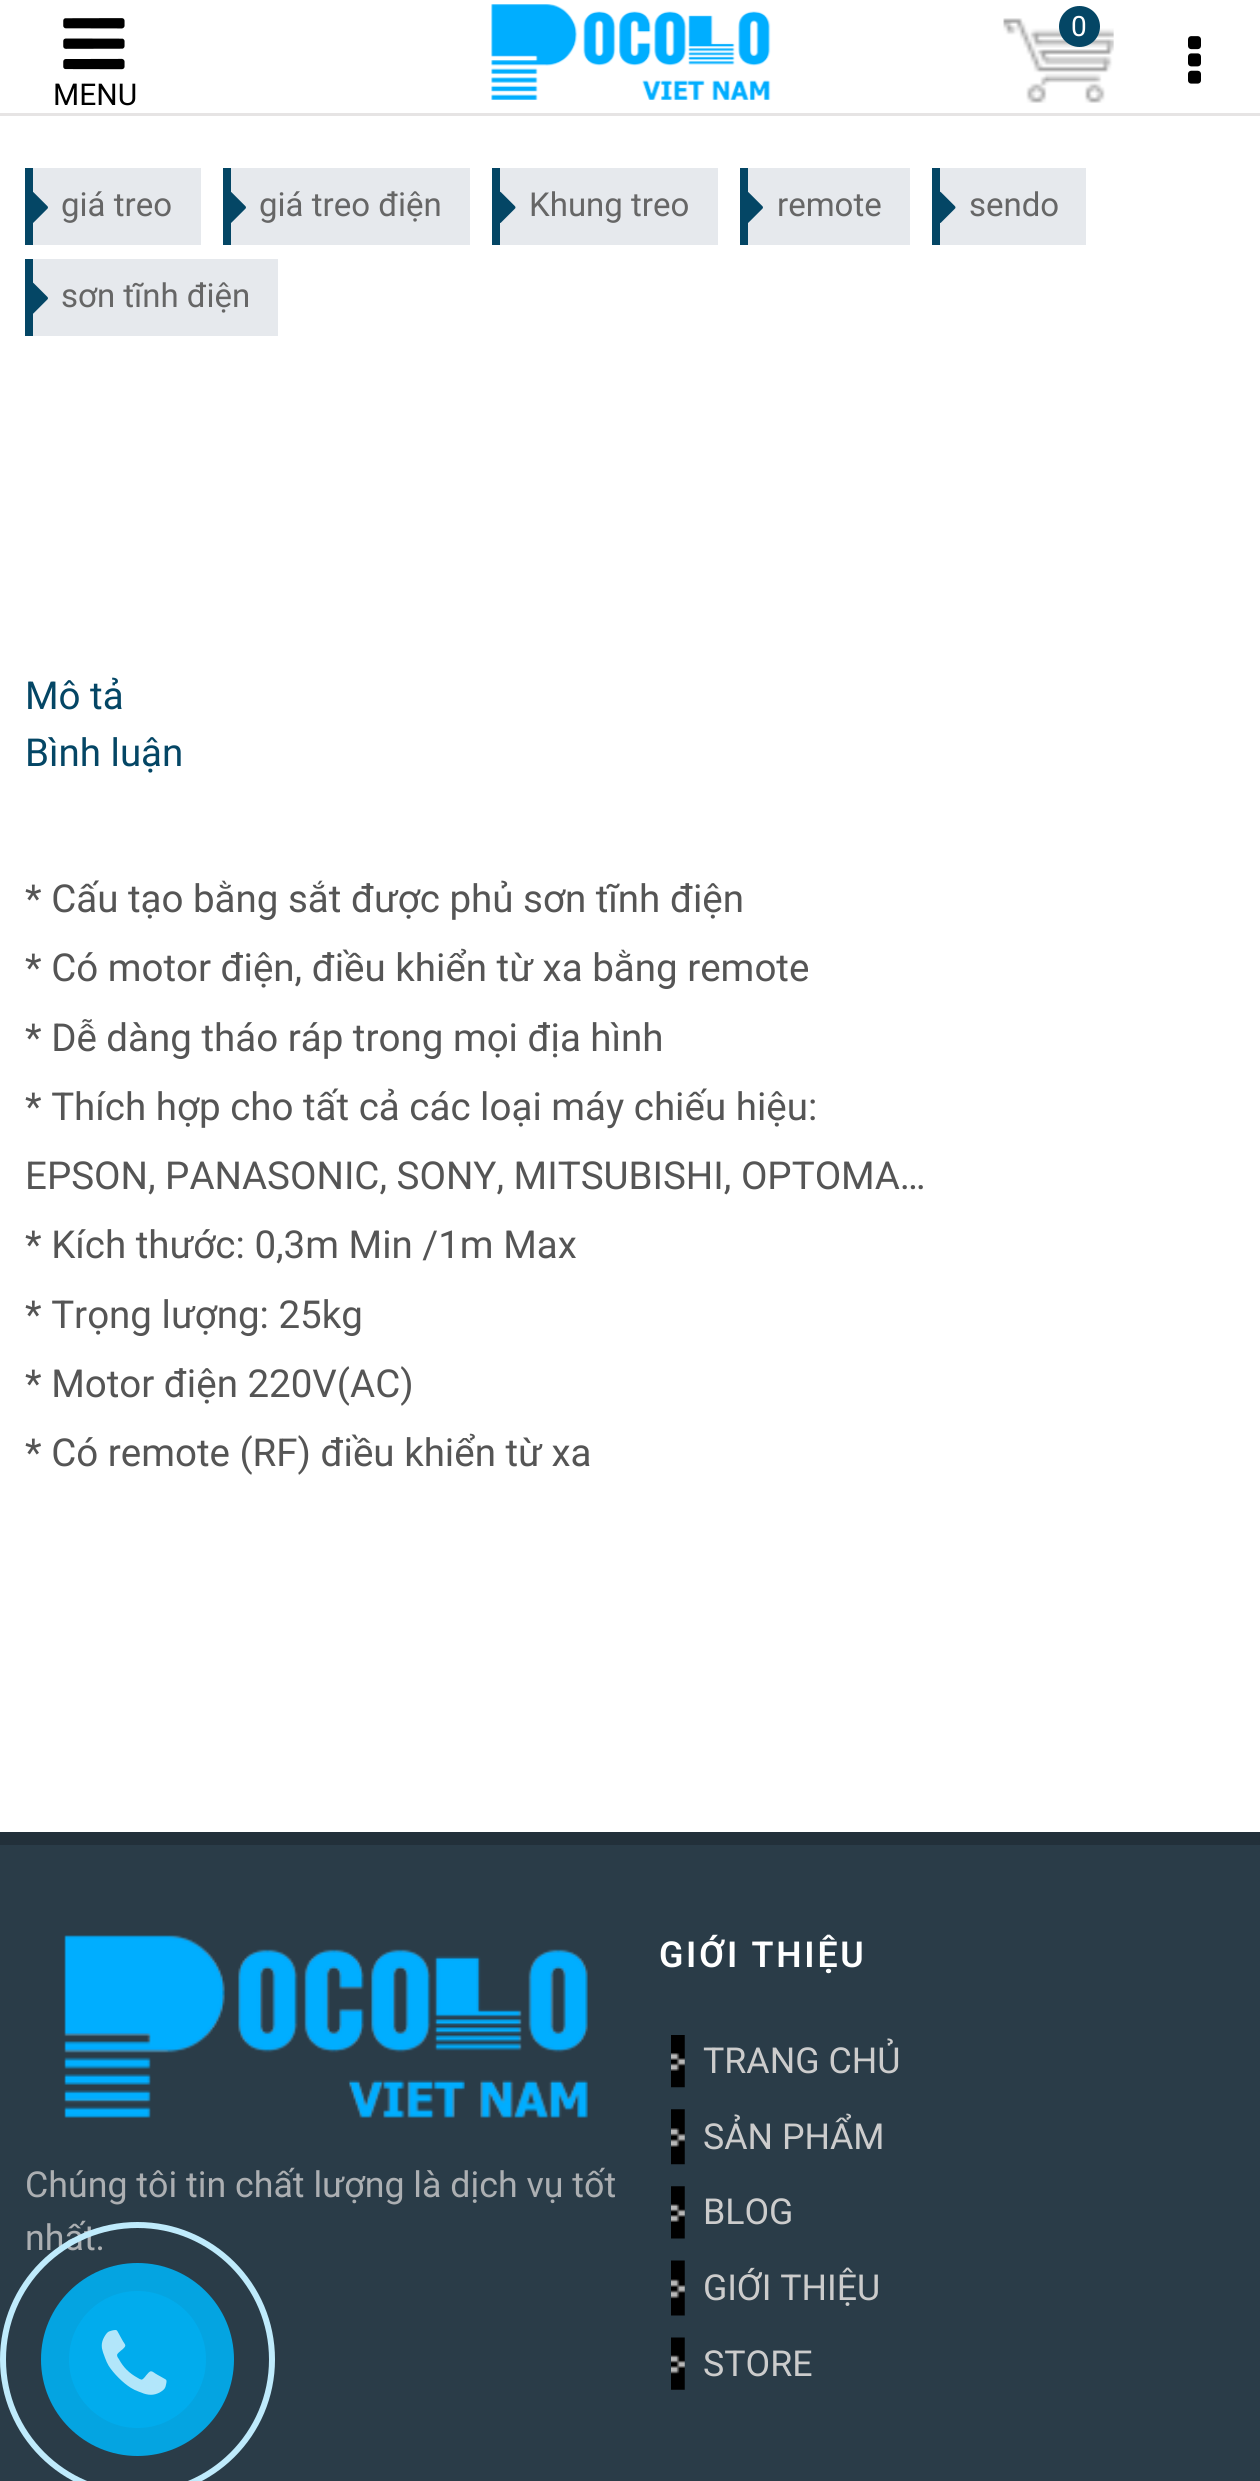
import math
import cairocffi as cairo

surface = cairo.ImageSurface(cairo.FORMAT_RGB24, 1260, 2481)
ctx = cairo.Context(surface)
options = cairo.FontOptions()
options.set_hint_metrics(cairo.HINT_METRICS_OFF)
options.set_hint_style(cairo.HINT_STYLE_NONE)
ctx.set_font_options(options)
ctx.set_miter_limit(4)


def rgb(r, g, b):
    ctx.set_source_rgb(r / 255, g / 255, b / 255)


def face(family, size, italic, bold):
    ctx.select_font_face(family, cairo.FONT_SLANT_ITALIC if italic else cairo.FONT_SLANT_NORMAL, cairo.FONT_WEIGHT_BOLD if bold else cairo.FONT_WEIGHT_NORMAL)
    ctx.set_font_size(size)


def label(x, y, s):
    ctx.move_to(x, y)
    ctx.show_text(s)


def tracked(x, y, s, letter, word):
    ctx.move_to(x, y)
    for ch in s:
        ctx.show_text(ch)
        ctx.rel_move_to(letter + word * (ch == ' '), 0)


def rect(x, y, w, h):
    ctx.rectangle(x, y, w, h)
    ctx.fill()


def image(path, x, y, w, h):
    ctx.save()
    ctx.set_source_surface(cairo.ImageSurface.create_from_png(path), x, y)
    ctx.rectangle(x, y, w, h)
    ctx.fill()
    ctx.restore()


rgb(255, 255, 255)
ctx.paint()
rgb(230, 228, 228)
rect(0, 113, 1260, 3)
image('image0.png', 491, 4, 280, 96)
image('image1.png', 1003, 18, 111, 85)
rgb(4, 70, 101)
ctx.arc(1079.5, 26.5, 20.5, 0, 2 * math.pi)
ctx.fill()
face('Roboto', 28, 0, 0)
rgb(255, 255, 255)
label(1071, 36, '0')
image('image2.png', 1188, 36, 13, 48)
image('image3.png', 63, 18, 62, 52)
face('Roboto', 30, 0, 0)
rgb(0, 0, 0)
label(53, 105, 'MENU')
rgb(230, 233, 237)
rect(33, 168, 168, 77)
rgb(4, 70, 101)
rect(25, 168, 8, 77)
image('image4.png', 33, 192, 15, 31)
face('Roboto', 33, 0, 0)
rgb(102, 102, 102)
label(61, 216, 'giá treo')
rgb(230, 233, 237)
rect(231, 168, 239, 77)
rgb(4, 70, 101)
rect(223, 168, 8, 77)
image('image4.png', 231, 192, 15, 31)
rgb(102, 102, 102)
label(259, 216, 'giá treo điện')
rgb(230, 233, 237)
rect(500, 168, 218, 77)
rgb(4, 70, 101)
rect(492, 168, 8, 77)
image('image5.png', 500, 191, 16, 32)
rgb(102, 102, 102)
label(529, 216, 'Khung treo')
rgb(230, 233, 237)
rect(748, 168, 162, 77)
rgb(4, 70, 101)
rect(740, 168, 8, 77)
image('image4.png', 748, 192, 15, 31)
rgb(102, 102, 102)
label(777, 216, 'remote')
rgb(230, 233, 237)
rect(940, 168, 146, 77)
rgb(4, 70, 101)
rect(932, 168, 8, 77)
image('image5.png', 940, 191, 16, 32)
rgb(102, 102, 102)
label(969, 216, 'sendo')
rgb(230, 233, 237)
rect(33, 259, 245, 77)
rgb(4, 70, 101)
rect(25, 259, 8, 77)
image('image6.png', 33, 282, 15, 32)
rgb(102, 102, 102)
label(61, 307, 'sơn tĩnh điện')
face('Roboto', 38.5, 0, 0)
rgb(4, 70, 101)
label(25, 709, 'Mô tả')
label(25, 766, 'Bình luận')
rgb(85, 85, 85)
label(25, 912, '* Cấu tạo bằng sắt được phủ sơn tĩnh điện')
label(25, 981, '* Có motor điện, điều khiển từ xa bằng remote')
label(25, 1051, '* Dễ dàng tháo ráp trong mọi địa hình')
label(25, 1120, '* Thích hợp cho tất cả các loại máy chiếu hiệu:')
label(25, 1189, 'EPSON, PANASONIC, SONY, MITSUBISHI, OPTOMA…')
label(25, 1258, '* Kích thước: 0,3m Min /1m Max')
label(25, 1328, '* Trọng lượng: 25kg')
label(25, 1397, '* Motor điện 220V(AC)')
label(25, 1466, '* Có remote (RF) điều khiển từ xa')
rgb(42, 60, 72)
rect(0, 1845, 1260, 636)
rgb(34, 48, 58)
rect(0, 1832, 1260, 13)
image('image7.png', 64, 1935, 524, 183)
face('Roboto', 35.75, 0, 0)
rgb(172, 175, 178)
label(25, 2197, 'Chúng tôi tin chất lượng là dịch vụ tốt')
label(25, 2250, 'nhất.')
face('Roboto SemiBold', 35.75, 0, 0)
rgb(255, 255, 255)
tracked(659, 1967, 'GIỚI THIỆU', 2.75, 0)
image('image8.png', 671, 2035, 14, 53)
face('Roboto', 35.75, 0, 0)
rgb(204, 204, 204)
label(703, 2073, 'TRANG CHỦ')
image('image9.png', 671, 2109, 14, 56)
label(703, 2149, 'SẢN PHẨM')
image('image10.png', 671, 2186, 14, 53)
label(703, 2224, 'BLOG')
image('image11.png', 671, 2260, 14, 56)
label(703, 2300, 'GIỚI THIỆU')
image('image12.png', 671, 2337, 14, 53)
label(703, 2376, 'STORE')
ctx.new_path()
ctx.arc(137.5, 2359.5, 134.5, 0, 2 * math.pi)
rgb(191, 235, 252)
ctx.set_line_width(6)
ctx.stroke()
rgb(4, 164, 225)
ctx.arc(137.5, 2359.5, 96.5, 0, 2 * math.pi)
ctx.fill()
rgb(1, 172, 237)
ctx.arc(137.5, 2359.5, 68.5, 0, 2 * math.pi)
ctx.fill()
image('image13.png', 101, 2330, 66, 65)
surface.write_to_png('render.png')
